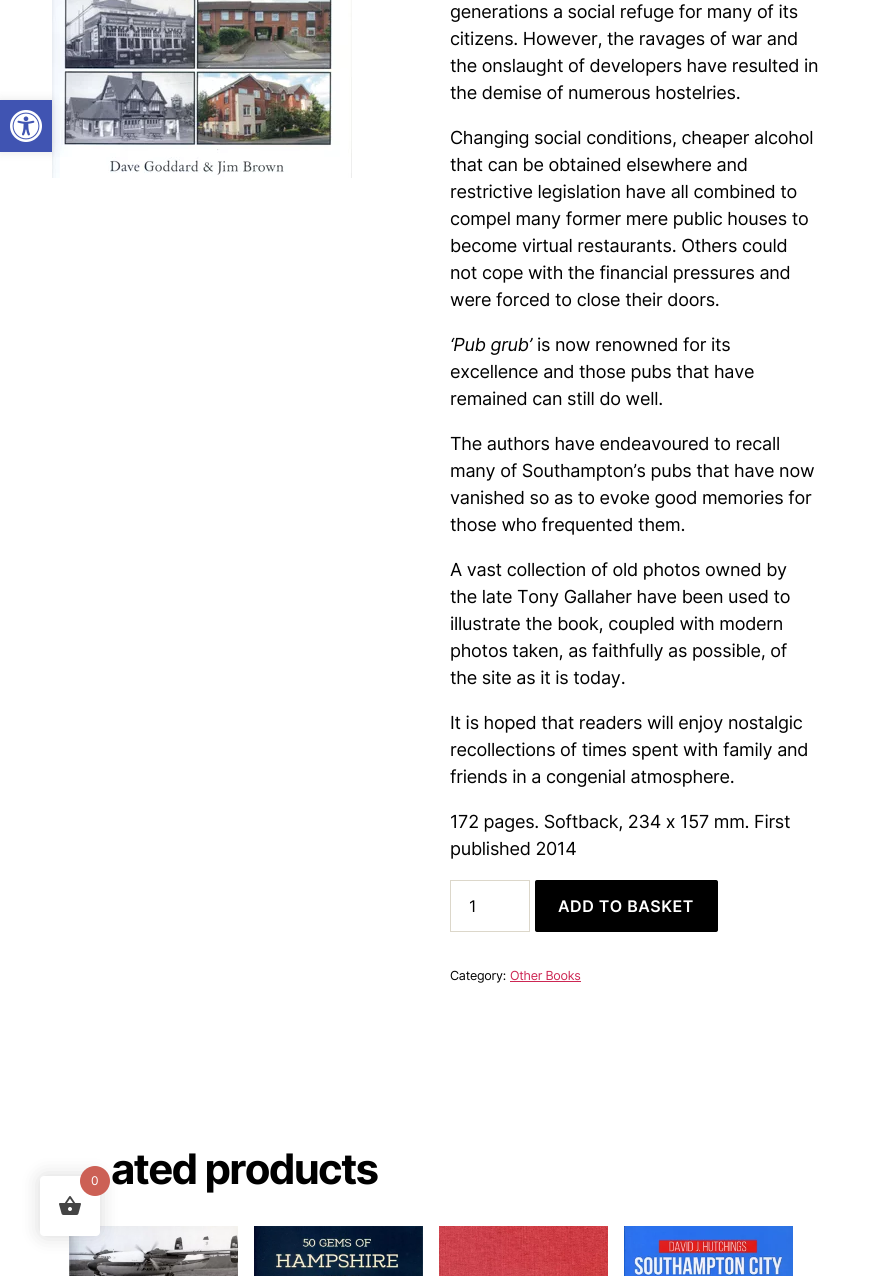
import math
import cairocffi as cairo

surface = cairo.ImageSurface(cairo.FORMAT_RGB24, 870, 1276)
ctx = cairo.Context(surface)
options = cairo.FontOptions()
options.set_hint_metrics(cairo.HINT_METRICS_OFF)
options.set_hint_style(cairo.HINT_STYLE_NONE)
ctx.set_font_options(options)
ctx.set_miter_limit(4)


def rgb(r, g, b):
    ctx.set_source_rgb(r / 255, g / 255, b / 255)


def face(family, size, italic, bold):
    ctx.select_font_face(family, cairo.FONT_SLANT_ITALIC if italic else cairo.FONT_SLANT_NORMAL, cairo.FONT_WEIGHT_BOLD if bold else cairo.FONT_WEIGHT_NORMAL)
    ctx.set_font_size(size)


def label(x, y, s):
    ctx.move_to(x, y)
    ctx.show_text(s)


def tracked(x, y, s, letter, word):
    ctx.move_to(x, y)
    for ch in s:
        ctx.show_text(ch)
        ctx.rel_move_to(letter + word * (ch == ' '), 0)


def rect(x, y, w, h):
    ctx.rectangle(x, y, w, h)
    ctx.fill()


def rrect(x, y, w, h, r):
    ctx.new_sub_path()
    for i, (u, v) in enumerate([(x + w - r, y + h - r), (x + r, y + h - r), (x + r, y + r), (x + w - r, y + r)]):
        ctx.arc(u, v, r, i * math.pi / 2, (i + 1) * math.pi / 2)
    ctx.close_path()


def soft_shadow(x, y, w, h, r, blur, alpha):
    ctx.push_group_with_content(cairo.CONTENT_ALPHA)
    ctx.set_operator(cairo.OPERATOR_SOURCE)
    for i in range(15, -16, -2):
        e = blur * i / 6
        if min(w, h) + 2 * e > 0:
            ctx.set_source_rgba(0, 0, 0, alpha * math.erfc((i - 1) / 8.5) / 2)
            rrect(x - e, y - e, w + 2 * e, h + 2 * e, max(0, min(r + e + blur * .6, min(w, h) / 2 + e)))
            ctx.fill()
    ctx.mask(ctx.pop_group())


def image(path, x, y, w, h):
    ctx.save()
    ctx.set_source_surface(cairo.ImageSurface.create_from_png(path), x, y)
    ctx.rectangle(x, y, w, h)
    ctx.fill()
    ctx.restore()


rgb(255, 255, 255)
ctx.paint()
image('image1.png', 52, 0, 300, 178)
rgb(0, 0, 0)
soft_shadow(0, 100, 52, 52, 0, 5, 0.1)
rgb(64, 84, 178)
rect(0, 100, 52, 52)
image('image0.png', 10, 110, 32, 32)
face('Inter', 18, 0, 0)
rgb(0, 0, 0)
tracked(450, 18, 'generations a social refuge for many of its', -0.25, 0)
tracked(450, 45, 'citizens. However, the ravages of war and', -0.25, 0)
tracked(450, 72, 'the onslaught of developers have resulted in', -0.25, 0)
tracked(450, 99, 'the demise of numerous hostelries.', -0.25, 0)
tracked(450, 144, 'Changing social conditions, cheaper alcohol', -0.25, 0)
tracked(450, 171, 'that can be obtained elsewhere and', -0.25, 0)
tracked(450, 198, 'restrictive legislation have all combined to', -0.25, 0)
tracked(450, 225, 'compel many former mere public houses to', -0.25, 0)
tracked(450, 252, 'become virtual restaurants. Others could', -0.25, 0)
tracked(450, 279, 'not cope with the financial pressures and', -0.25, 0)
tracked(450, 306, 'were forced to close their doors.', -0.25, 0)
face('Inter', 18, 1, 0)
tracked(450, 351, '‘Pub grub’', -0.25, 0)
face('Inter', 18, 0, 0)
tracked(537, 351, 'is now renowned for its', -0.25, 0)
tracked(450, 378, 'excellence and those pubs that have', -0.25, 0)
tracked(450, 405, 'remained can still do well.', -0.25, 0)
tracked(450, 450, 'The authors have endeavoured to recall', -0.25, 0)
tracked(450, 477, 'many of Southampton’s pubs that have now', -0.25, 0)
tracked(450, 504, 'vanished so as to evoke good memories for', -0.25, 0)
tracked(450, 531, 'those who frequented them.', -0.25, 0)
tracked(450, 576, 'A vast collection of old photos owned by', -0.25, 0)
tracked(450, 603, 'the late Tony Gallaher have been used to', -0.25, 0)
tracked(450, 630, 'illustrate the book, coupled with modern', -0.25, 0)
tracked(450, 657, 'photos taken, as faithfully as possible, of', -0.25, 0)
tracked(450, 684, 'the site as it is today.', -0.25, 0)
tracked(450, 729, 'It is hoped that readers will enjoy nostalgic', -0.25, 0)
tracked(450, 756, 'recollections of times spent with family and', -0.25, 0)
tracked(450, 783, 'friends in a congenial atmosphere.', -0.25, 0)
tracked(450, 828, '172 pages. Softback, 234 x 157 mm. First', -0.25, 0)
tracked(450, 855, 'published 2014', -0.25, 0)
ctx.rectangle(450.5, 880.5, 79, 51)
rgb(220, 215, 202)
ctx.set_line_width(1)
ctx.stroke()
face('Inter', 16, 0, 0)
rgb(0, 0, 0)
label(469, 912, '1')
rrect(535, 880, 183, 52, 2)
ctx.fill()
face('Inter SemiBold', 16, 0, 0)
rgb(255, 255, 255)
tracked(558, 912, 'ADD TO BASKET', 0.5, 0)
face('Inter', 12.5, 0, 0)
rgb(0, 0, 0)
tracked(450, 980, 'Category:', -0.25, 0)
rgb(205, 38, 83)
tracked(510, 980, 'Other Books', -0.25, 0)
rect(510, 981, 71, 1)
face('Inter', 42, 0, 1)
rgb(0, 0, 0)
tracked(111, 1184, 'ated products', -1.75, 0)
image('image2.png', 69, 1226, 169, 50)
image('image3.png', 254, 1226, 169, 50)
image('image4.png', 439, 1226, 169, 50)
image('image5.png', 624, 1226, 169, 50)
rgb(0, 0, 0)
soft_shadow(40, 1176, 60, 60, 4, 10, 0.15)
rgb(255, 255, 255)
rrect(40, 1176, 60, 60, 4)
ctx.fill()
rgb(204, 96, 85)
ctx.arc(95, 1181, 15, 0, 2 * math.pi)
ctx.fill()
face('Inter', 12, 0, 0)
rgb(255, 255, 255)
tracked(91, 1185, '0', -0.25, 0)
image('image6.png', 59, 1196, 22, 19)
surface.write_to_png('render.png')
